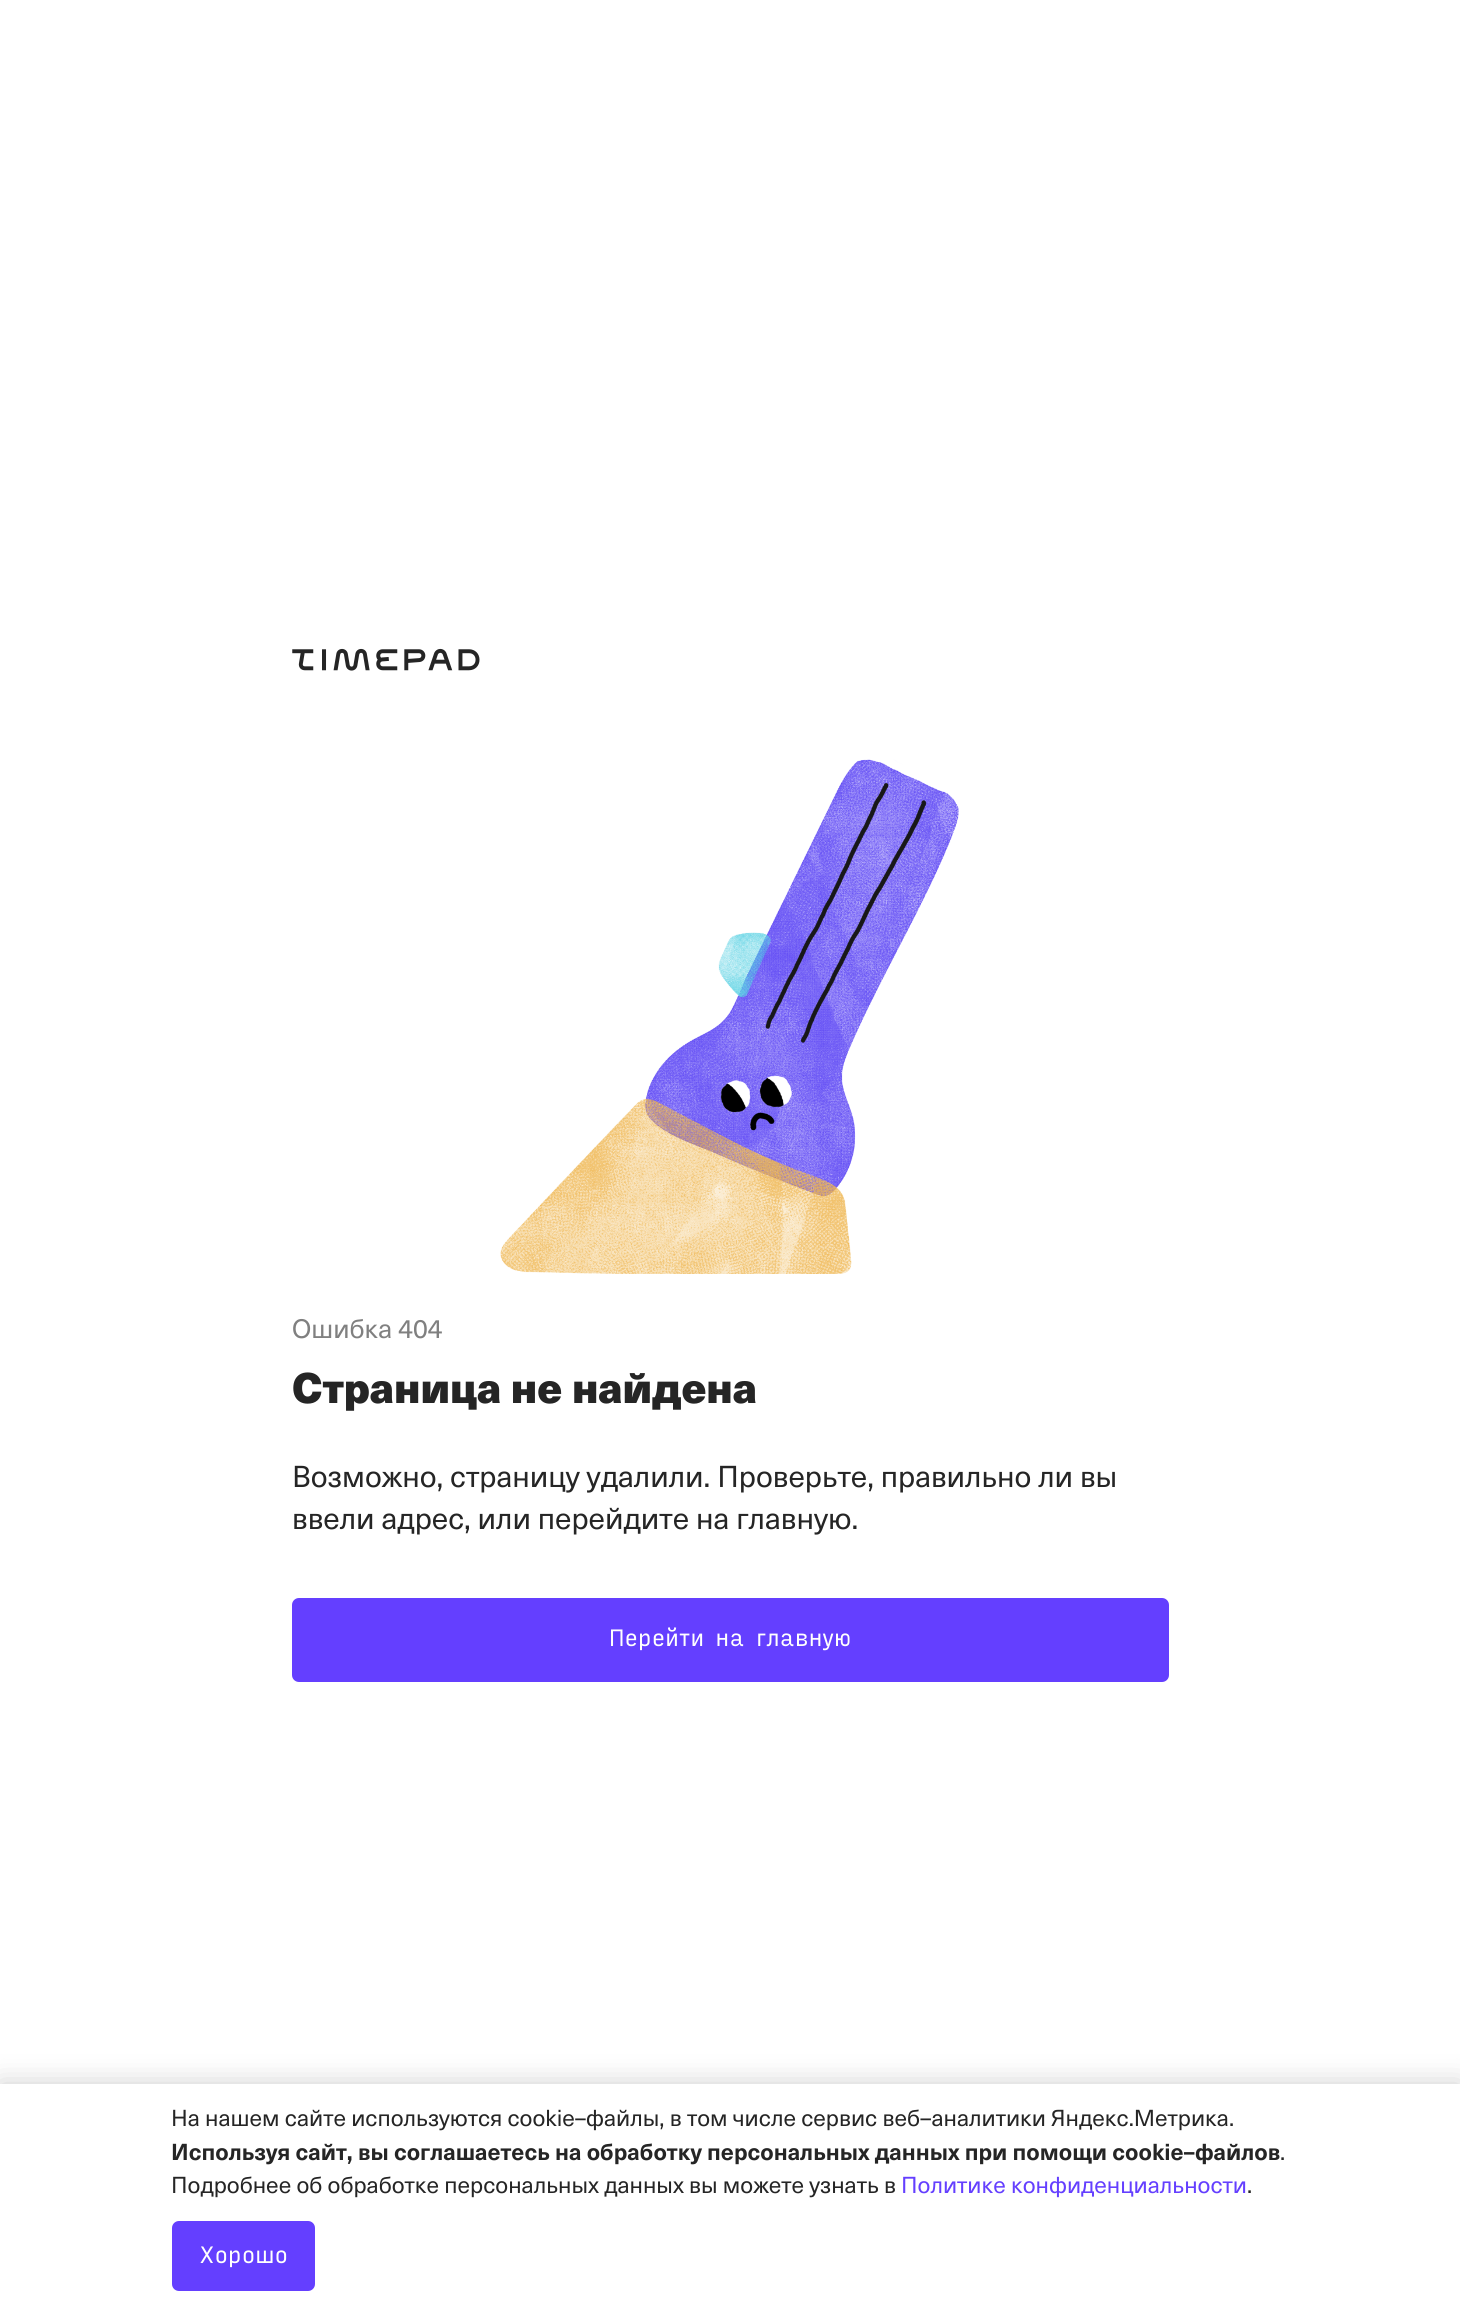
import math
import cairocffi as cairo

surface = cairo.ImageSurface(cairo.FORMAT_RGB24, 1460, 2318)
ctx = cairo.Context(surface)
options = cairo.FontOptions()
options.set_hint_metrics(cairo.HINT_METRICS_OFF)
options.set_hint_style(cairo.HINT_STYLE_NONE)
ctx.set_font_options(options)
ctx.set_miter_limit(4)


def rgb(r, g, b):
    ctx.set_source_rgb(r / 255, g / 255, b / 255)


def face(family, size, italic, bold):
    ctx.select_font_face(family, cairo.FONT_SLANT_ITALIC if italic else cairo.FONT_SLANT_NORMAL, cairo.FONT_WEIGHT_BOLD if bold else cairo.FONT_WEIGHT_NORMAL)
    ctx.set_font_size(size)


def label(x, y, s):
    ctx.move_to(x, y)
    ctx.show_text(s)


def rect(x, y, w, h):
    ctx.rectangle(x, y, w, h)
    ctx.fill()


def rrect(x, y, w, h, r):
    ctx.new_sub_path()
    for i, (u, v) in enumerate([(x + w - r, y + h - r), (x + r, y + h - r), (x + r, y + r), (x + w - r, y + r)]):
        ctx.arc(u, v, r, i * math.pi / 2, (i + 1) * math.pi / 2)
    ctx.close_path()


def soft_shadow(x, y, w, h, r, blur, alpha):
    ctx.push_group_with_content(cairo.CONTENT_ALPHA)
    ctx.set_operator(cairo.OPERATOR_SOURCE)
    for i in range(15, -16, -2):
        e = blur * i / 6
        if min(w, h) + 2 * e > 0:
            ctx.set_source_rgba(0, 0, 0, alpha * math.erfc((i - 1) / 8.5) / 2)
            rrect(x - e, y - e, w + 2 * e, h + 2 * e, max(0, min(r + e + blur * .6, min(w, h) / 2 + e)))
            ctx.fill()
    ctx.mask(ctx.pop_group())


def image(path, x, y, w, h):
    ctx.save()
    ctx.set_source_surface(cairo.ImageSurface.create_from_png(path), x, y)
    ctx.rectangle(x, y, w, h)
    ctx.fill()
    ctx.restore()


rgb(255, 255, 255)
ctx.paint()
image('image0.png', 292, 648, 188, 23)
image('image1.png', 500, 759, 459, 515)
face('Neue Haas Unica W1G', 26.25, 0, 0)
rgb(128, 128, 128)
label(292, 1338, 'Ошибка 404')
face('Neue Haas Unica W1G Black', 42, 0, 0)
rgb(37, 37, 37)
label(292, 1403, 'Страница не найдена')
face('Neue Haas Unica W1G', 29.75, 0, 0)
label(292, 1487, 'Возможно, страницу удалили. Проверьте, правильно ли вы')
label(292, 1529, 'ввели адрес, или перейдите на главную.')
rgb(100, 63, 255)
rrect(292, 1598, 877, 84, 7)
ctx.fill()
face('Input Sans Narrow', 22.75, 0, 0)
rgb(255, 255, 255)
label(609, 1646, 'Перейти на главную')
rgb(0, 0, 0)
soft_shadow(0, 2084, 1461, 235, 0, 14, 0.2)
rgb(255, 255, 255)
rect(0, 2084, 1460, 234)
face('Neue Haas Unica W1G', 22.75, 0, 0)
rgb(37, 37, 37)
label(171, 2126, 'На нашем сайте используются cookie–файлы, в том числе сервис веб–аналитики Яндекс.Метрика.')
face('Neue Haas Unica W1G', 22.75, 0, 1)
label(171, 2160, 'Используя сайт, вы соглашаетесь на обработку персональных данных при помощи cookie–файлов')
face('Neue Haas Unica W1G', 22.75, 0, 0)
label(1280, 2160, '.')
label(171, 2193, 'Подробнее об обработке персональных данных вы можете узнать в')
rgb(100, 63, 255)
label(901, 2193, 'Политике конфиденциальности')
rgb(37, 37, 37)
label(1247, 2193, '.')
rgb(100, 63, 255)
rrect(172, 2221, 143, 70, 7)
ctx.fill()
face('Input Sans Narrow', 22.75, 0, 0)
rgb(255, 255, 255)
label(199, 2263, 'Хорошо')
surface.write_to_png('render.png')
